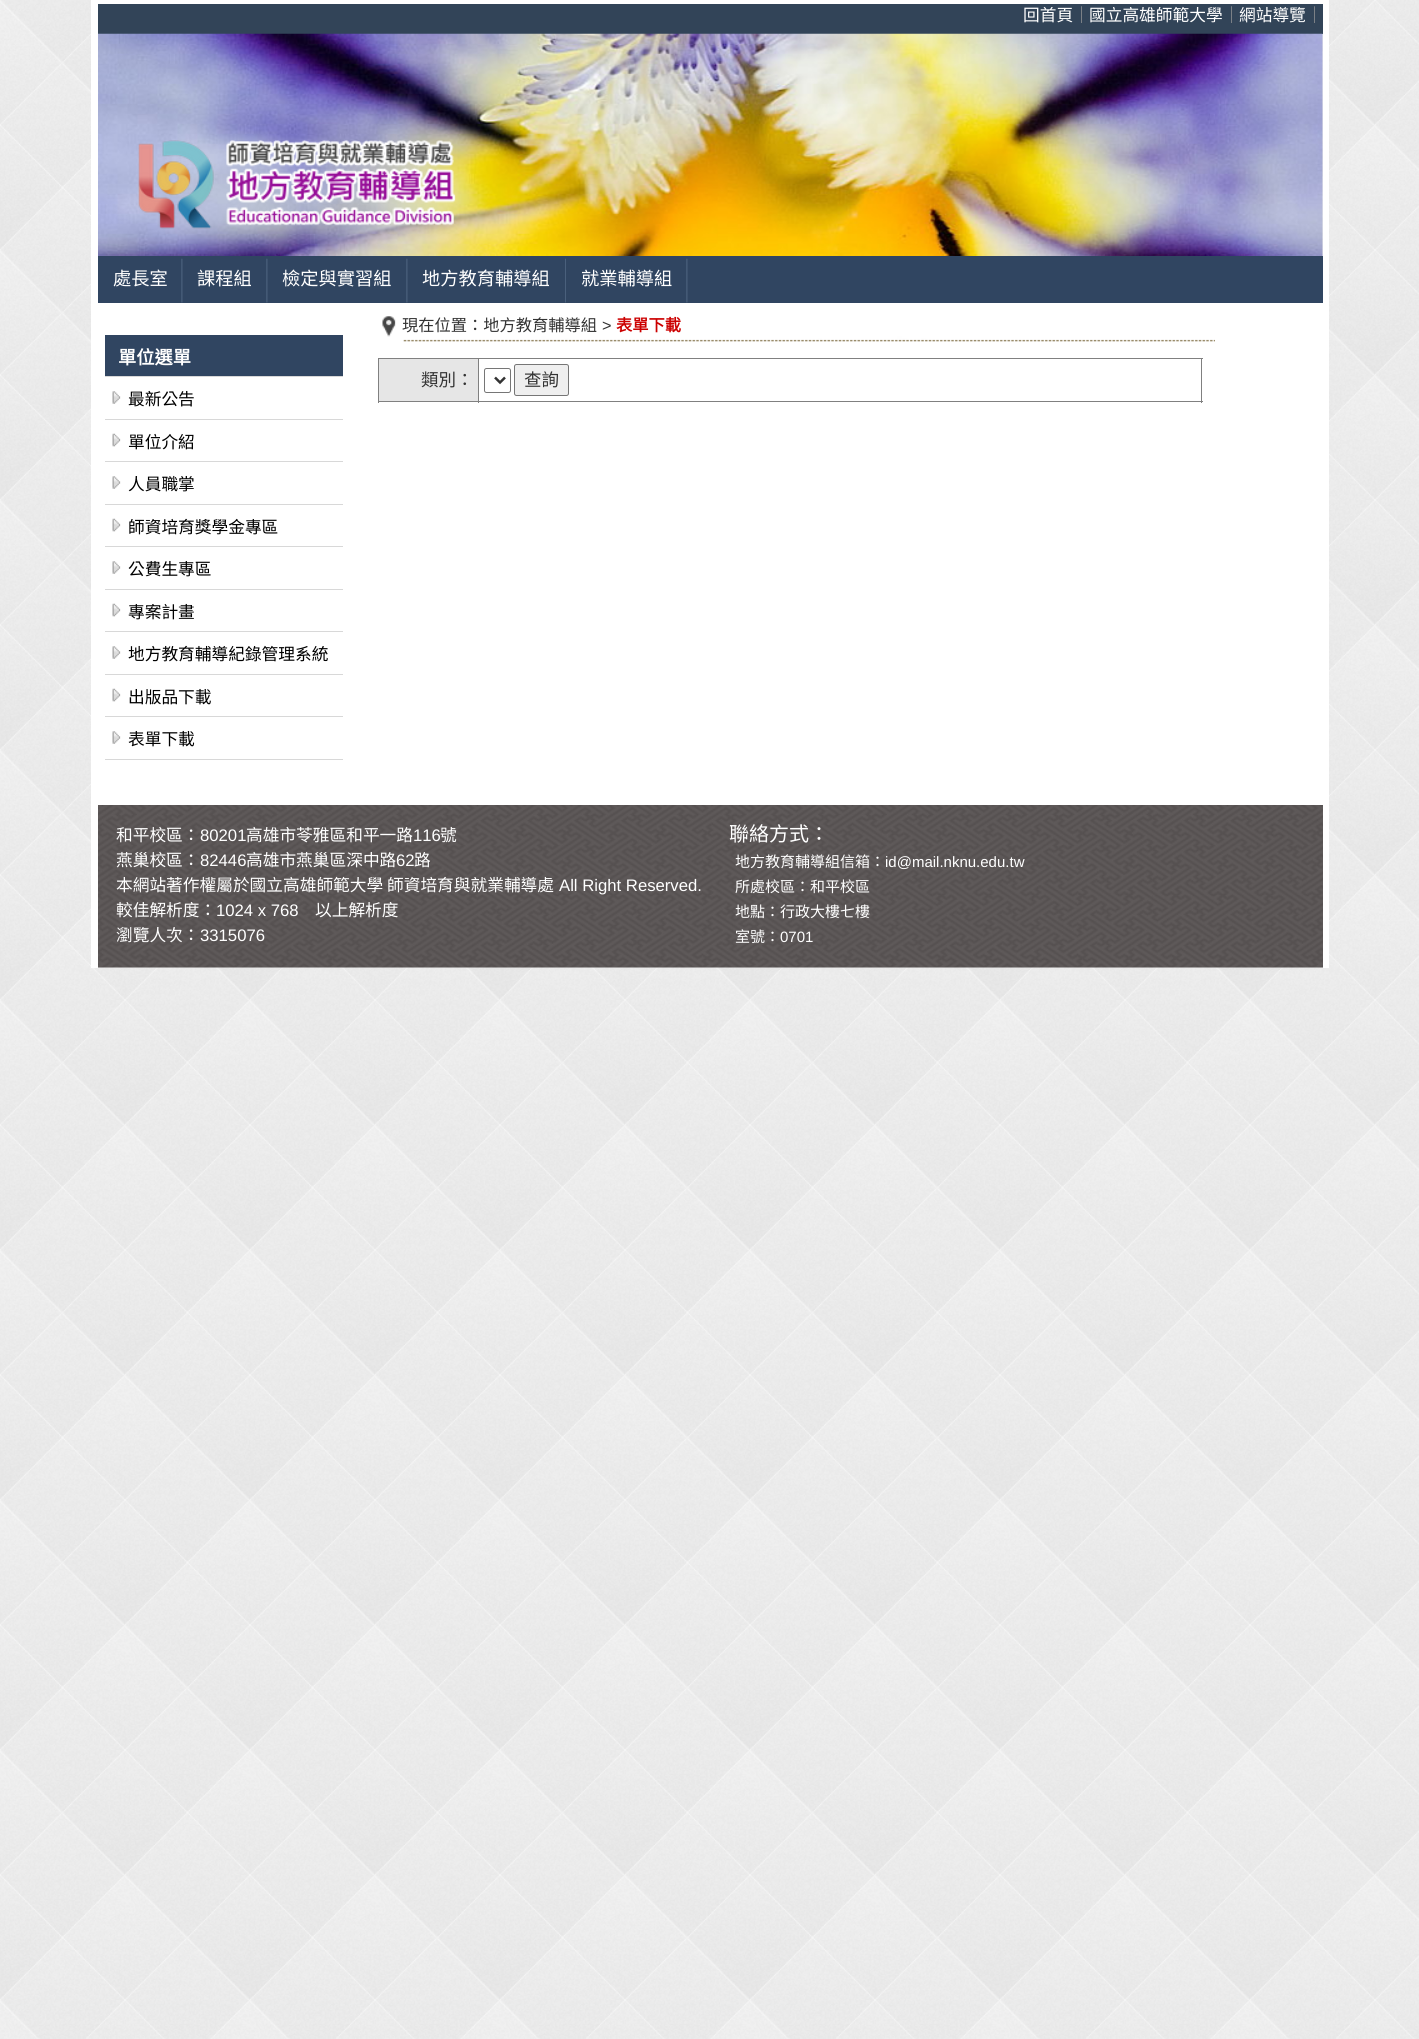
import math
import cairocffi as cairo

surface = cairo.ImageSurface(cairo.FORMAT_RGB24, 1419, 2039)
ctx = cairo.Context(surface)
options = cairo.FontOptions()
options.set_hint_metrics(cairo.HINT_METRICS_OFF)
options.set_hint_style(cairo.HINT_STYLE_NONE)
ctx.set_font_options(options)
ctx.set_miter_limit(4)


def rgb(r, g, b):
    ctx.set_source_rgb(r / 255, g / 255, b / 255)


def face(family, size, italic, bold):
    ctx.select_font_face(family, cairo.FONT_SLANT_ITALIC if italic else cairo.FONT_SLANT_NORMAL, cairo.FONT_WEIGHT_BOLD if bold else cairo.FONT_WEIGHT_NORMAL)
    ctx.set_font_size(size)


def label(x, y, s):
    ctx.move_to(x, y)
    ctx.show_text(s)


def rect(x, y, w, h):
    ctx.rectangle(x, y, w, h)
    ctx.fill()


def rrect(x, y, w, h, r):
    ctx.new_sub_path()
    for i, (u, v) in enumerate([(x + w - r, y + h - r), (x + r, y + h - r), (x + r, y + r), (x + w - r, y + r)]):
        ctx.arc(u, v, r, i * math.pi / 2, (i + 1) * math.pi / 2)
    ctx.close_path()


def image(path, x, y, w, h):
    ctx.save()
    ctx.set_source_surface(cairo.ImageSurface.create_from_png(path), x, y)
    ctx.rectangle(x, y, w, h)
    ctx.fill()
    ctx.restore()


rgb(255, 255, 255)
ctx.paint()
image('image0.png', 0, 0, 1419, 2039)
rgb(255, 255, 255)
rect(91, 0, 1238, 4)
rect(1323, 0, 6, 968)
rect(91, 0, 7, 968)
rgb(50, 68, 88)
rect(98, 4, 1225, 30)
face('Noto Sans CJK TC', 16.7, 0, 0)
rgb(255, 255, 255)
label(1023, 21, '回首頁')
rgb(153, 153, 153)
label(1073, 21, '｜')
rgb(255, 255, 255)
label(1089, 21, '國立高雄師範大學')
rgb(153, 153, 153)
label(1223, 21, '｜')
rgb(255, 255, 255)
label(1239, 21, '網站導覽')
rgb(153, 153, 153)
label(1306, 21, '｜')
image('image1.png', 98, 33, 1225, 223)
image('image2.png', 138, 140, 318, 89)
rgb(48, 69, 97)
rect(98, 256, 1225, 47)
image('image3.png', 181, 258, 2, 45)
face('Noto Sans CJK TC', 18.25, 0, 0)
rgb(255, 255, 255)
label(113, 285, '處長室')
image('image3.png', 266, 258, 2, 45)
label(197, 285, '課程組')
image('image3.png', 406, 258, 2, 45)
label(282, 285, '檢定與實習組')
image('image4.png', 565, 258, 1, 45)
label(422, 285, '地方教育輔導組')
image('image3.png', 686, 258, 2, 45)
label(581, 285, '就業輔導組')
rect(98, 303, 1225, 502)
rgb(48, 69, 97)
rect(105, 335, 238, 41)
face('Noto Sans CJK TC', 18.25, 0, 1)
rgb(255, 255, 255)
label(118, 364, '單位選單')
rgb(216, 216, 216)
rect(105, 376, 238, 1)
image('image5.png', 112, 391, 9, 13)
rect(105, 419, 238, 1)
face('Noto Sans CJK TC', 16.7, 0, 0)
rgb(0, 0, 0)
label(128, 405, '最新公告')
image('image6.png', 112, 433, 9, 14)
rgb(216, 216, 216)
rect(105, 461, 238, 1)
rgb(0, 0, 0)
label(128, 448, '單位介紹')
image('image5.png', 112, 476, 9, 13)
rgb(216, 216, 216)
rect(105, 504, 238, 1)
rgb(0, 0, 0)
label(128, 490, '人員職掌')
image('image6.png', 112, 518, 9, 14)
rgb(216, 216, 216)
rect(105, 546, 238, 1)
rgb(0, 0, 0)
label(128, 533, '師資培育獎學金專區')
image('image5.png', 112, 561, 9, 13)
rgb(216, 216, 216)
rect(105, 589, 238, 1)
rgb(0, 0, 0)
label(128, 575, '公費生專區')
image('image6.png', 112, 603, 9, 14)
rgb(216, 216, 216)
rect(105, 631, 238, 1)
rgb(0, 0, 0)
label(128, 618, '專案計畫')
image('image5.png', 112, 646, 9, 13)
rgb(216, 216, 216)
rect(105, 674, 238, 1)
rgb(0, 0, 0)
label(128, 660, '地方教育輔導紀錄管理系統')
image('image6.png', 112, 688, 9, 14)
rgb(216, 216, 216)
rect(105, 716, 238, 1)
rgb(0, 0, 0)
label(128, 703, '出版品下載')
image('image5.png', 112, 731, 9, 13)
rgb(216, 216, 216)
rect(105, 759, 238, 1)
rgb(0, 0, 0)
label(128, 745, '表單下載')
image('image7.png', 382, 316, 833, 26)
face('Noto Sans CJK TC', 16.25, 0, 0)
rgb(51, 51, 51)
label(402, 331, '現在位置：地方教育輔導組')
face('Liberation Sans', 16.25, 0, 0)
label(602, 331, '>')
face('Noto Sans CJK TC', 16.25, 0, 1)
rgb(204, 0, 0)
label(616, 331, '表單下載')
rgb(128, 128, 128)
rect(378, 358, 825, 1)
rect(1201, 358, 1, 45)
rect(378, 401, 825, 1)
rect(378, 358, 1, 45)
rgb(230, 230, 230)
rect(379, 359, 99, 42)
face('Noto Sans CJK TC', 17.5, 0, 0)
rgb(51, 51, 51)
label(421, 386, '類別：')
rgb(128, 128, 128)
rect(478, 358, 1, 45)
rrect(484.5, 368.5, 26, 24, 2)
rgb(118, 118, 118)
ctx.set_line_width(1)
ctx.stroke()
ctx.new_path()
ctx.move_to(495, 377.5)
ctx.line_to(500, 382.5)
ctx.line_to(505, 377.5)
rgb(51, 51, 51)
ctx.set_line_width(2.5)
ctx.stroke()
rgb(239, 239, 239)
rrect(514.5, 364.5, 54, 31, 2)
ctx.fill_preserve()
rgb(118, 118, 118)
ctx.set_line_width(1)
ctx.stroke()
rgb(51, 51, 51)
label(524, 386, '查詢')
image('image8.png', 98, 805, 1225, 163)
face('Noto Sans CJK TC', 16.7, 0, 0)
rgb(255, 255, 255)
label(116, 841, '和平校區：')
face('Liberation Sans', 16.7, 0, 0)
label(200, 841, '80201')
face('Noto Sans CJK TC', 16.7, 0, 0)
label(246, 841, '高雄市苓雅區和平一路')
face('Liberation Sans', 16.7, 0, 0)
label(413, 841, '116')
face('Noto Sans CJK TC', 16.7, 0, 0)
label(440, 841, '號')
label(116, 866, '燕巢校區：')
face('Liberation Sans', 16.7, 0, 0)
label(200, 866, '82446')
face('Noto Sans CJK TC', 16.7, 0, 0)
label(246, 866, '高雄市燕巢區深中路')
face('Liberation Sans', 16.7, 0, 0)
label(396, 866, '62')
face('Noto Sans CJK TC', 16.7, 0, 0)
label(414, 866, '路')
label(116, 891, '本網站著作權屬於國立高雄師範大學')
label(387, 891, '師資培育與就業輔導處')
face('Liberation Sans', 16.7, 0, 0)
label(559, 891, 'All Right Reserved.')
face('Noto Sans CJK TC', 16.7, 0, 0)
label(116, 916, '較佳解析度：')
face('Liberation Sans', 16.7, 0, 0)
label(216, 916, '1024 x 768')
face('Noto Sans CJK TC', 16.7, 0, 0)
label(315, 916, '以上解析度')
label(116, 941, '瀏覽人次：')
face('Liberation Sans', 16.7, 0, 0)
label(200, 941, '3315076')
face('Noto Sans CJK TC', 20, 0, 0)
label(729, 841, '聯絡方式：')
face('Noto Sans CJK TC', 15, 0, 0)
label(735, 867, '地方教育輔導組信箱：')
face('Liberation Sans', 15, 0, 0)
label(885, 867, 'id@mail.nknu.edu.tw')
face('Noto Sans CJK TC', 15, 0, 0)
label(735, 892, '所處校區：和平校區')
label(735, 917, '地點：行政大樓七樓')
label(735, 942, '室號：')
face('Liberation Sans', 15, 0, 0)
label(780, 942, '0701')
surface.write_to_png('render.png')
